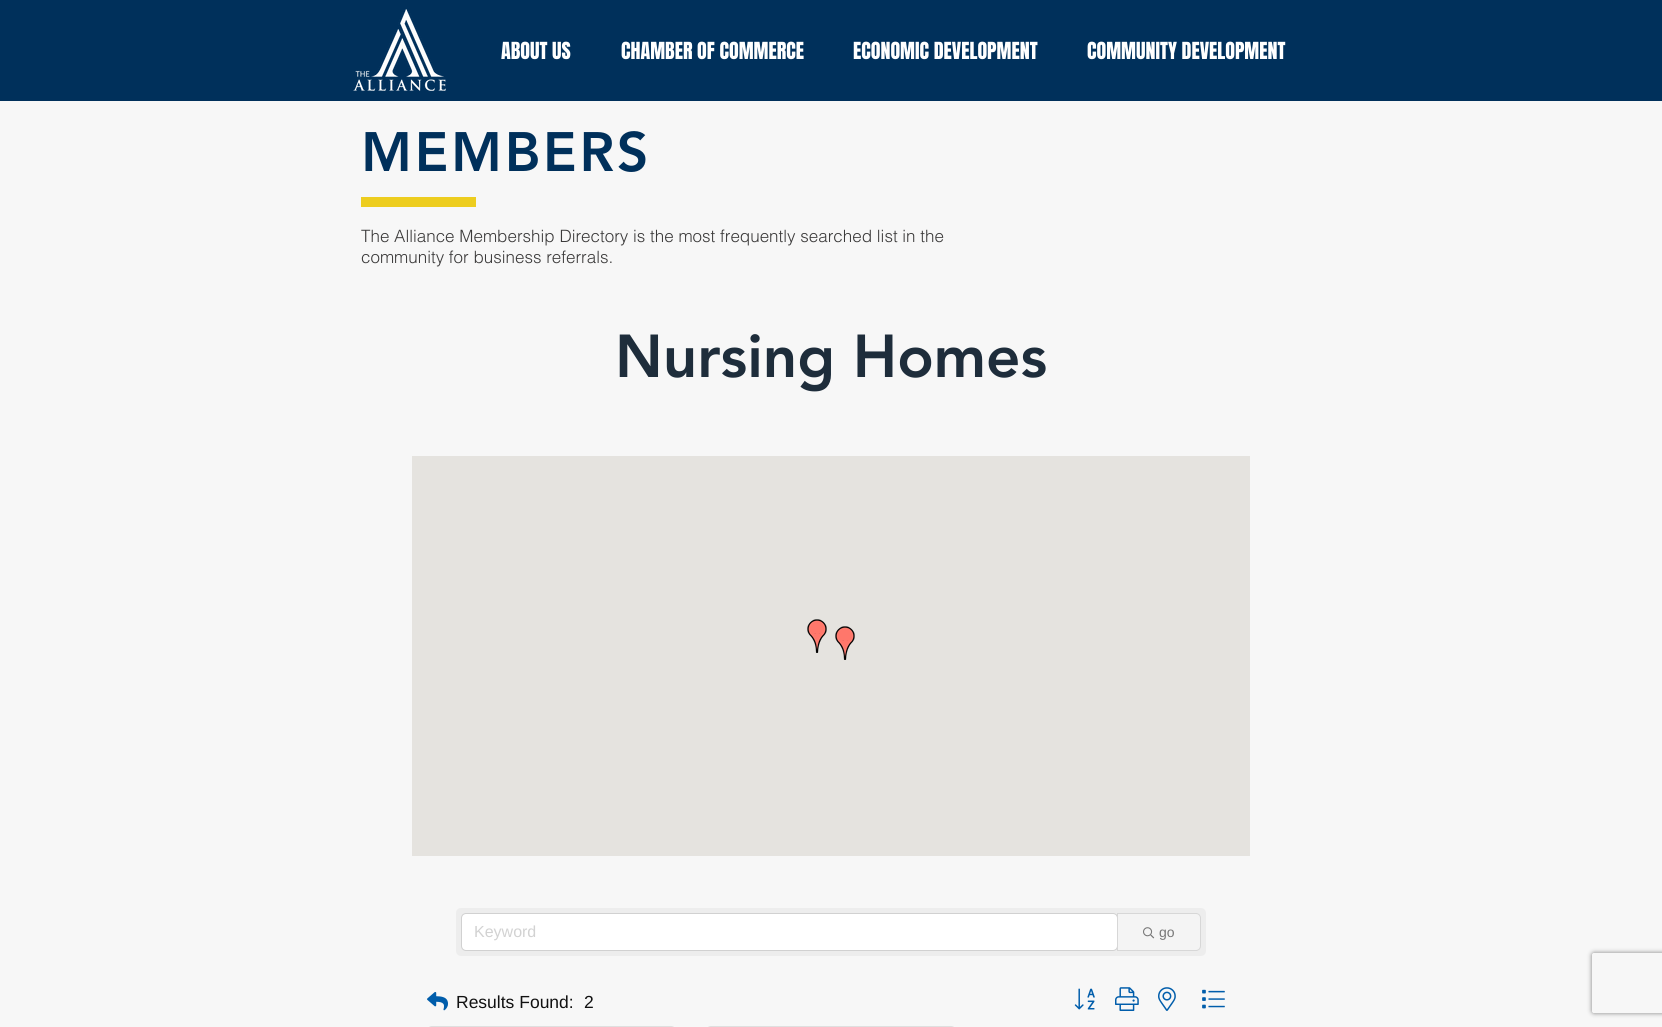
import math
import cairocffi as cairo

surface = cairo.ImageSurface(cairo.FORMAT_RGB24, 1662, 1027)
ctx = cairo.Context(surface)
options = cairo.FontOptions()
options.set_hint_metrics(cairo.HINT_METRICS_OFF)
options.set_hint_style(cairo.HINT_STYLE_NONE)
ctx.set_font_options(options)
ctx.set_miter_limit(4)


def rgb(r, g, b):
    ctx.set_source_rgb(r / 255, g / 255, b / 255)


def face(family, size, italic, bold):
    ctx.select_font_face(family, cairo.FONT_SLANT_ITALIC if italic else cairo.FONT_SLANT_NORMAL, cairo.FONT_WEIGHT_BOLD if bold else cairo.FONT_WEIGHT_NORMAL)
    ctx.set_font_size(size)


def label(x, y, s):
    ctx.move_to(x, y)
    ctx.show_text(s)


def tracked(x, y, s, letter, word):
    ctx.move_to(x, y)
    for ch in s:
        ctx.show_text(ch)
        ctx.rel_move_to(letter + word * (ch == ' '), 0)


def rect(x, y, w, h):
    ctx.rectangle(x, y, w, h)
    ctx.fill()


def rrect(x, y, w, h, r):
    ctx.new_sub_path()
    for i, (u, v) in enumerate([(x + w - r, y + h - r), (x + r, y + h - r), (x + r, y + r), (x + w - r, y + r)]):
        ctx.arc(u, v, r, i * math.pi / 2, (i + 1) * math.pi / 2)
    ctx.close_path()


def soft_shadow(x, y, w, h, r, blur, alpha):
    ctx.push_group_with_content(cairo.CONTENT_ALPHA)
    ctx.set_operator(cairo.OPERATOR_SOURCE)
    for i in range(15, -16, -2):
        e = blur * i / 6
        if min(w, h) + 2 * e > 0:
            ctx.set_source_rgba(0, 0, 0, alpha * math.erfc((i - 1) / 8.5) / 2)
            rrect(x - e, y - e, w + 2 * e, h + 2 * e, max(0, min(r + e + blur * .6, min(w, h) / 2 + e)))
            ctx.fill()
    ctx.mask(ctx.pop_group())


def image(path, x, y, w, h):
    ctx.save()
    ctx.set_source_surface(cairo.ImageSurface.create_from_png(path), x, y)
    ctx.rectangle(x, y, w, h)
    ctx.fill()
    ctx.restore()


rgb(247, 247, 247)
ctx.paint()
rgb(0, 48, 91)
rect(0, 0, 1662, 101)
image('image0.png', 353, 9, 93, 82)
face('Anton', 20, 0, 0)
rgb(255, 255, 255)
label(501, 59, 'ABOUT US')
label(621, 59, 'CHAMBER OF COMMERCE')
label(853, 59, 'ECONOMIC DEVELOPMENT')
label(1087, 59, 'COMMUNITY DEVELOPMENT')
face('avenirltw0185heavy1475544 Black', 55, 0, 0)
rgb(0, 48, 91)
tracked(361, 171, 'MEMBERS', 2.75, 0)
rgb(237, 205, 31)
rect(361, 197, 115, 10)
face('helvetica Light', 17, 0, 0)
rgb(59, 58, 58)
label(361, 242, 'The Alliance Membership Directory is the most frequently searched list in the')
label(361, 263, 'community for business referrals.')
face('avenirltw0185heavy1475544 Black', 60, 0, 0)
rgb(30, 45, 59)
label(615, 377, 'Nursing Homes')
rgb(229, 227, 223)
rect(412, 456, 838, 400)
image('image1.png', 807, 619, 20, 34)
image('image1.png', 835, 626, 20, 34)
rgb(237, 237, 237)
rrect(456, 908, 750, 48, 5)
ctx.fill()
rgb(255, 255, 255)
rrect(462, 914, 655, 36, 4)
ctx.fill()
rrect(461.5, 913.5, 656, 37, 4.5)
ctx.set_source_rgba(0, 0, 0, 0.12)
ctx.set_line_width(1)
ctx.stroke()
face('Liberation Sans', 16, 0, 0)
rgb(210, 210, 210)
label(474, 937, 'Keyword')
rgb(244, 244, 244)
ctx.new_path()
ctx.move_to(1117, 913)
ctx.line_to(1196, 913)
ctx.curve_to(1199, 913, 1201, 915, 1201, 918)
ctx.line_to(1201, 946)
ctx.curve_to(1201, 949, 1199, 951, 1196, 951)
ctx.line_to(1117, 951)
ctx.close_path()
ctx.fill()
ctx.new_path()
ctx.move_to(1117.5, 913.5)
ctx.line_to(1196, 913.5)
ctx.curve_to(1198.5, 913.5, 1200.5, 915.5, 1200.5, 918)
ctx.line_to(1200.5, 946)
ctx.curve_to(1200.5, 948.5, 1198.5, 950.5, 1196, 950.5)
ctx.line_to(1117.5, 950.5)
ctx.close_path()
ctx.set_source_rgba(0, 0, 0, 0.12)
ctx.stroke()
image('image2.png', 1143, 927, 12, 12)
face('Liberation Sans', 14, 0, 0)
rgb(119, 119, 119)
label(1159, 937, 'go')
image('image3.png', 427, 992, 21, 19)
face('Liberation Sans', 17.5, 0, 0)
rgb(17, 17, 17)
label(456, 1008, 'Results Found:')
label(584, 1008, '2')
image('image4.png', 1074, 988, 21, 22)
image('image5.png', 1115, 987, 24, 24)
image('image6.png', 1158, 987, 18, 24)
image('image7.png', 1202, 989, 23, 20)
rrect(427.5, 1026.5, 248, 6, 4.5)
rgb(223, 223, 223)
ctx.stroke()
rrect(706.5, 1026.5, 249, 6, 4.5)
ctx.stroke()
ctx.save()
ctx.set_fill_rule(cairo.FILL_RULE_EVEN_ODD)
ctx.new_path()
ctx.move_to(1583, 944)
ctx.line_to(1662, 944)
ctx.line_to(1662, 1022)
ctx.line_to(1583, 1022)
ctx.close_path()
ctx.move_to(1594, 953)
ctx.line_to(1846, 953)
ctx.curve_to(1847, 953, 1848, 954, 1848, 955)
ctx.line_to(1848, 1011)
ctx.curve_to(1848, 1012, 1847, 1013, 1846, 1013)
ctx.line_to(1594, 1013)
ctx.curve_to(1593, 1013, 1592, 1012, 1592, 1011)
ctx.line_to(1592, 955)
ctx.curve_to(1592, 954, 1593, 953, 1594, 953)
ctx.close_path()
ctx.clip()
rgb(128, 128, 128)
soft_shadow(1592, 953, 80, 60, 2, 2.5, 1)
ctx.restore()
surface.write_to_png('render.png')
